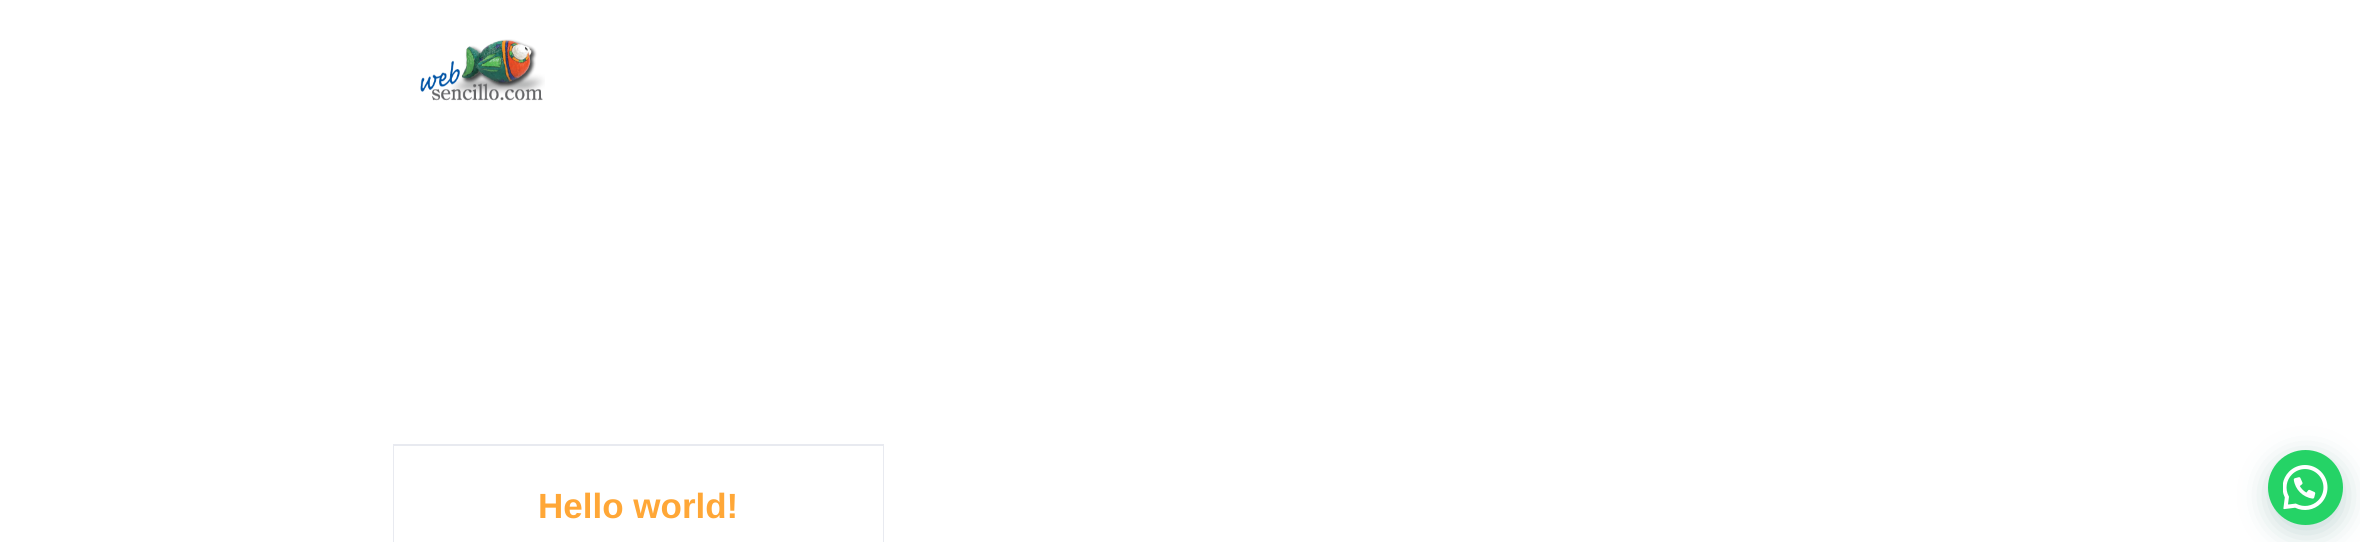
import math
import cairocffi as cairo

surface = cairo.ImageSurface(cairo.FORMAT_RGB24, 2360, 542)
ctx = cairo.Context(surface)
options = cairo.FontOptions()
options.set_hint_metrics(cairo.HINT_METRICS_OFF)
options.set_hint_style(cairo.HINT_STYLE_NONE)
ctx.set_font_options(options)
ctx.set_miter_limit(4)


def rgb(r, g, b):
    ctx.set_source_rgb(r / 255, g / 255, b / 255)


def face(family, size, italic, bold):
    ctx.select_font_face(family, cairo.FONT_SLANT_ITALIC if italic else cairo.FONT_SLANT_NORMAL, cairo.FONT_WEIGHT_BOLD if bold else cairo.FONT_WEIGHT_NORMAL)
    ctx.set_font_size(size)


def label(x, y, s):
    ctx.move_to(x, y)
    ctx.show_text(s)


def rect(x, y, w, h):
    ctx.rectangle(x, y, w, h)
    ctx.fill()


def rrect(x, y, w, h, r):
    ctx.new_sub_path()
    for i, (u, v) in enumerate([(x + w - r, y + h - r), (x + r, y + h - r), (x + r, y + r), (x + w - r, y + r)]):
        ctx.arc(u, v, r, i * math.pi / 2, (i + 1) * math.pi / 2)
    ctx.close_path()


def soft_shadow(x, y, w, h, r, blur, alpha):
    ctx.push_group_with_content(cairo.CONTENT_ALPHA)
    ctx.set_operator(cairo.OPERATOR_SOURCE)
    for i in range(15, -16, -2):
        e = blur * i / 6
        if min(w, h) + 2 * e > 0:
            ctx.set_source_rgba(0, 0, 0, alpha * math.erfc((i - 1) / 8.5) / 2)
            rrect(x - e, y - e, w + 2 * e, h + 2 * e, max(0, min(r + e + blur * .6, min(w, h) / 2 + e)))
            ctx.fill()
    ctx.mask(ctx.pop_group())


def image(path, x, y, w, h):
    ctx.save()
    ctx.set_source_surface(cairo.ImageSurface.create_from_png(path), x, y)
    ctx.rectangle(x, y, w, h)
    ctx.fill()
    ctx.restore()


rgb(255, 255, 255)
ctx.paint()
image('image0.png', 420, 39, 125, 62)
rgb(232, 234, 240)
rect(393, 444, 491, 1)
rect(883, 444, 1, 98)
rect(393, 444, 1, 98)
rect(394, 445, 489, 1)
face('Liberation Sans', 35, 0, 1)
rgb(255, 167, 55)
label(538, 518, 'Hello world!')
rgb(7, 94, 84)
soft_shadow(2269, 458, 75, 75, 37.5, 15, 0.24)
rgb(37, 211, 102)
ctx.arc(2305.5, 487.5, 37.5, 0, 2 * math.pi)
ctx.fill()
image('image1.png', 2283, 465, 45, 45)
surface.write_to_png('render.png')
